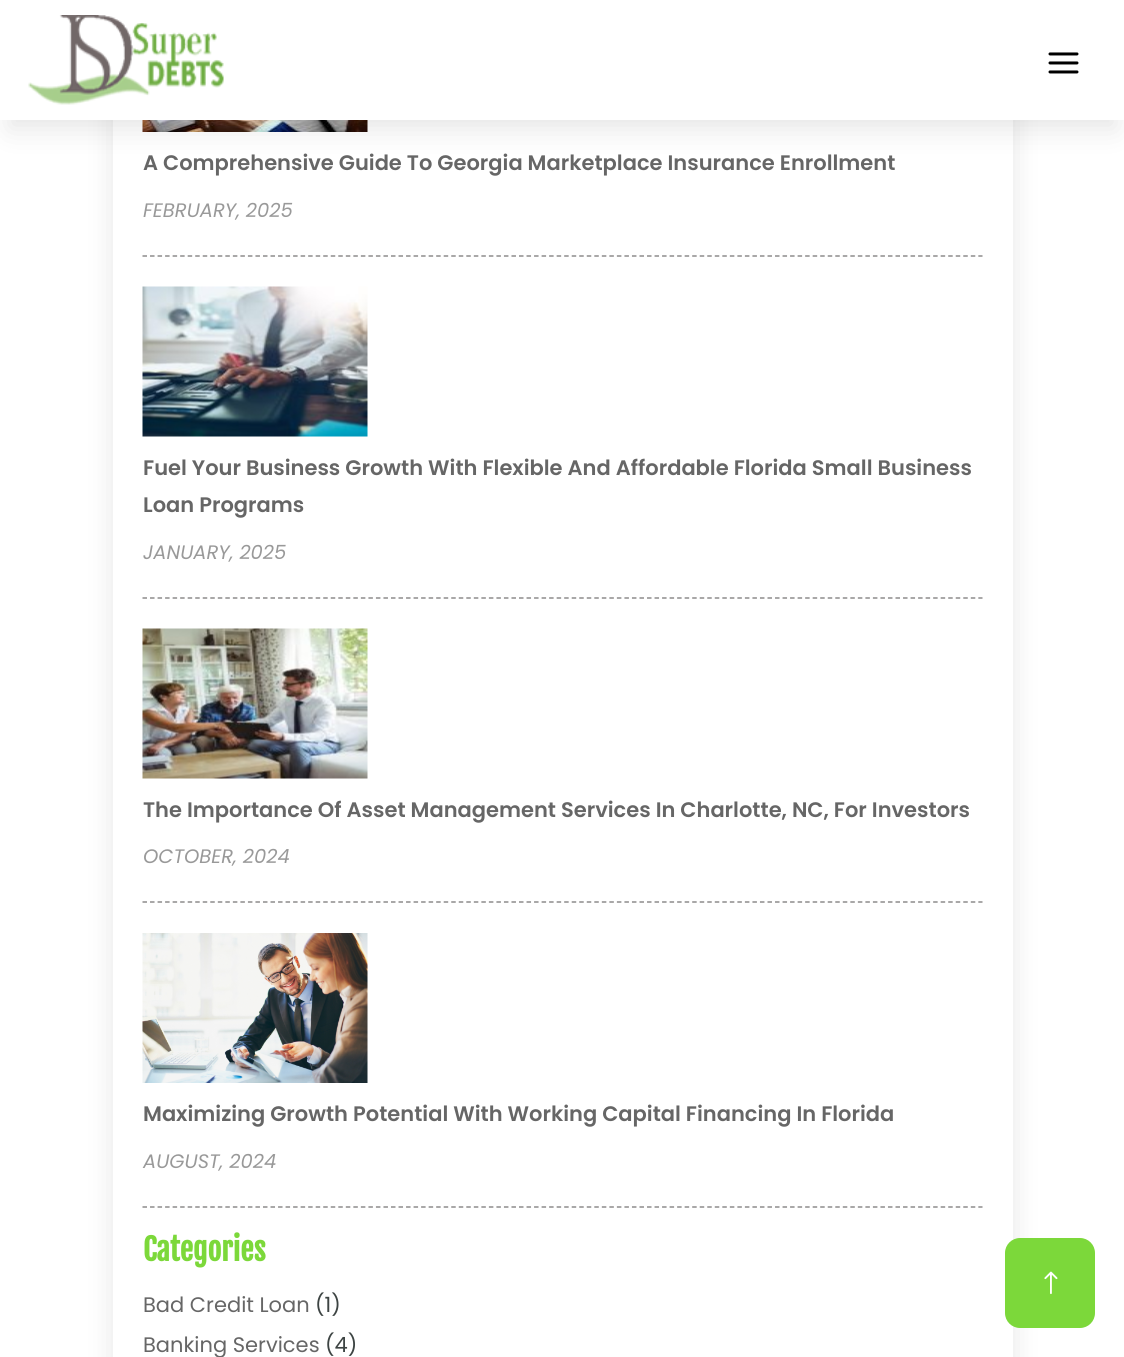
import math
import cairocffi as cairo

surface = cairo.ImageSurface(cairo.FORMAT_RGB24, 1124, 1357)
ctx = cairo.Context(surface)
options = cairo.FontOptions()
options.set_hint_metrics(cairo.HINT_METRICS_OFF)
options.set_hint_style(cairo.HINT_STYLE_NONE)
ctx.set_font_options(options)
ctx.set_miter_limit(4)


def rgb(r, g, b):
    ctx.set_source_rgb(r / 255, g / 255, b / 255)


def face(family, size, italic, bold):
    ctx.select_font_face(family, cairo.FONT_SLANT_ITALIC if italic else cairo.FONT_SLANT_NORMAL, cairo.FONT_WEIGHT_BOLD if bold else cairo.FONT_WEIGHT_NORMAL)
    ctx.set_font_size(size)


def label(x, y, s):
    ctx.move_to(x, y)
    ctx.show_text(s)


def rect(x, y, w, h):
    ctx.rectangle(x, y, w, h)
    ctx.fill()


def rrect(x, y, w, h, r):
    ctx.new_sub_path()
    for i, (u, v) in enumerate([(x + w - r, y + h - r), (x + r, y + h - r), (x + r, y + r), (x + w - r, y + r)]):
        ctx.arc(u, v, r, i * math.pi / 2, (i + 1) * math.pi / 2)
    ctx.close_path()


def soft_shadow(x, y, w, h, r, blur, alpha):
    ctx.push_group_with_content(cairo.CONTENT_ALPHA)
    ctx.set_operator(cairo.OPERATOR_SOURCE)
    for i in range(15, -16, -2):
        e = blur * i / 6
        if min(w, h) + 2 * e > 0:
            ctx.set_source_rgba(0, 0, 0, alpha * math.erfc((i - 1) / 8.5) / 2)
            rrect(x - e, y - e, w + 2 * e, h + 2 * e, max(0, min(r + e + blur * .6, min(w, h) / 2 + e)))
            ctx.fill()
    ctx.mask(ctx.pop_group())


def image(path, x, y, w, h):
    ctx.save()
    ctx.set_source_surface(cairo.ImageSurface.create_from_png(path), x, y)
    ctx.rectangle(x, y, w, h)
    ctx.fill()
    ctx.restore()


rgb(255, 255, 255)
ctx.paint()
rgb(0, 0, 0)
soft_shadow(113, -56, 900, 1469, 15, 13.5, 0.1)
rgb(255, 255, 255)
rect(113, 120, 900, 1237)
image('image2.png', 142, 120, 226, 12)
rgb(0, 0, 0)
soft_shadow(9, 27, 1107, 102, 0, 13.5, 0.1)
rgb(255, 255, 255)
rect(0, 0, 1124, 120)
image('image0.png', 28, 15, 196, 90)
image('image1.png', 1048, 52, 31, 22)
ctx.new_path()
ctx.move_to(142.5, 256)
ctx.line_to(982.5, 256)
rgb(141, 139, 139)
ctx.set_line_width(1.5)
ctx.set_dash([4.5, 3.03])
ctx.stroke()
face('Poppins SemiBold', 21, 0, 0)
rgb(102, 102, 102)
label(143, 170, 'A Comprehensive Guide To Georgia Marketplace Insurance Enrollment')
face('Poppins', 19.5, 1, 0)
rgb(153, 153, 153)
label(143, 217, 'FEBRUARY, 2025')
ctx.new_path()
ctx.move_to(142.5, 598)
ctx.line_to(982.5, 598)
rgb(141, 139, 139)
ctx.stroke()
image('image3.png', 142, 286, 226, 151)
face('Poppins SemiBold', 21, 0, 0)
rgb(102, 102, 102)
label(143, 475, 'Fuel Your Business Growth With Flexible And Affordable Florida Small Business')
label(143, 512, 'Loan Programs')
face('Poppins', 19.5, 1, 0)
rgb(153, 153, 153)
label(143, 559, 'JANUARY, 2025')
ctx.new_path()
ctx.move_to(142.5, 902)
ctx.line_to(982.5, 902)
rgb(141, 139, 139)
ctx.stroke()
image('image4.png', 142, 628, 226, 151)
face('Poppins SemiBold', 21, 0, 0)
rgb(102, 102, 102)
label(143, 817, 'The Importance Of Asset Management Services In Charlotte, NC, For Investors')
face('Poppins', 19.5, 1, 0)
rgb(153, 153, 153)
label(143, 863, 'OCTOBER, 2024')
ctx.new_path()
ctx.move_to(142.5, 1207)
ctx.line_to(982.5, 1207)
rgb(141, 139, 139)
ctx.stroke()
image('image5.png', 142, 933, 226, 150)
face('Poppins SemiBold', 21, 0, 0)
rgb(102, 102, 102)
label(143, 1121, 'Maximizing Growth Potential With Working Capital Financing In Florida')
face('Poppins', 19.5, 1, 0)
rgb(153, 153, 153)
label(143, 1168, 'AUGUST, 2024')
face('Fjalla One', 30, 0, 1)
rgb(124, 216, 58)
label(143, 1261, 'Categories')
face('Poppins', 21, 0, 0)
rgb(102, 102, 102)
label(143, 1312, 'Bad Credit Loan')
rgb(61, 68, 67)
label(315, 1312, '(1)')
rgb(102, 102, 102)
label(143, 1352, 'Banking Services')
rgb(61, 68, 67)
label(325, 1352, '(4)')
rgb(124, 216, 58)
rrect(1005, 1238, 90, 90, 15)
ctx.fill()
image('image6.png', 1044, 1271, 14, 24)
surface.write_to_png('render.png')
